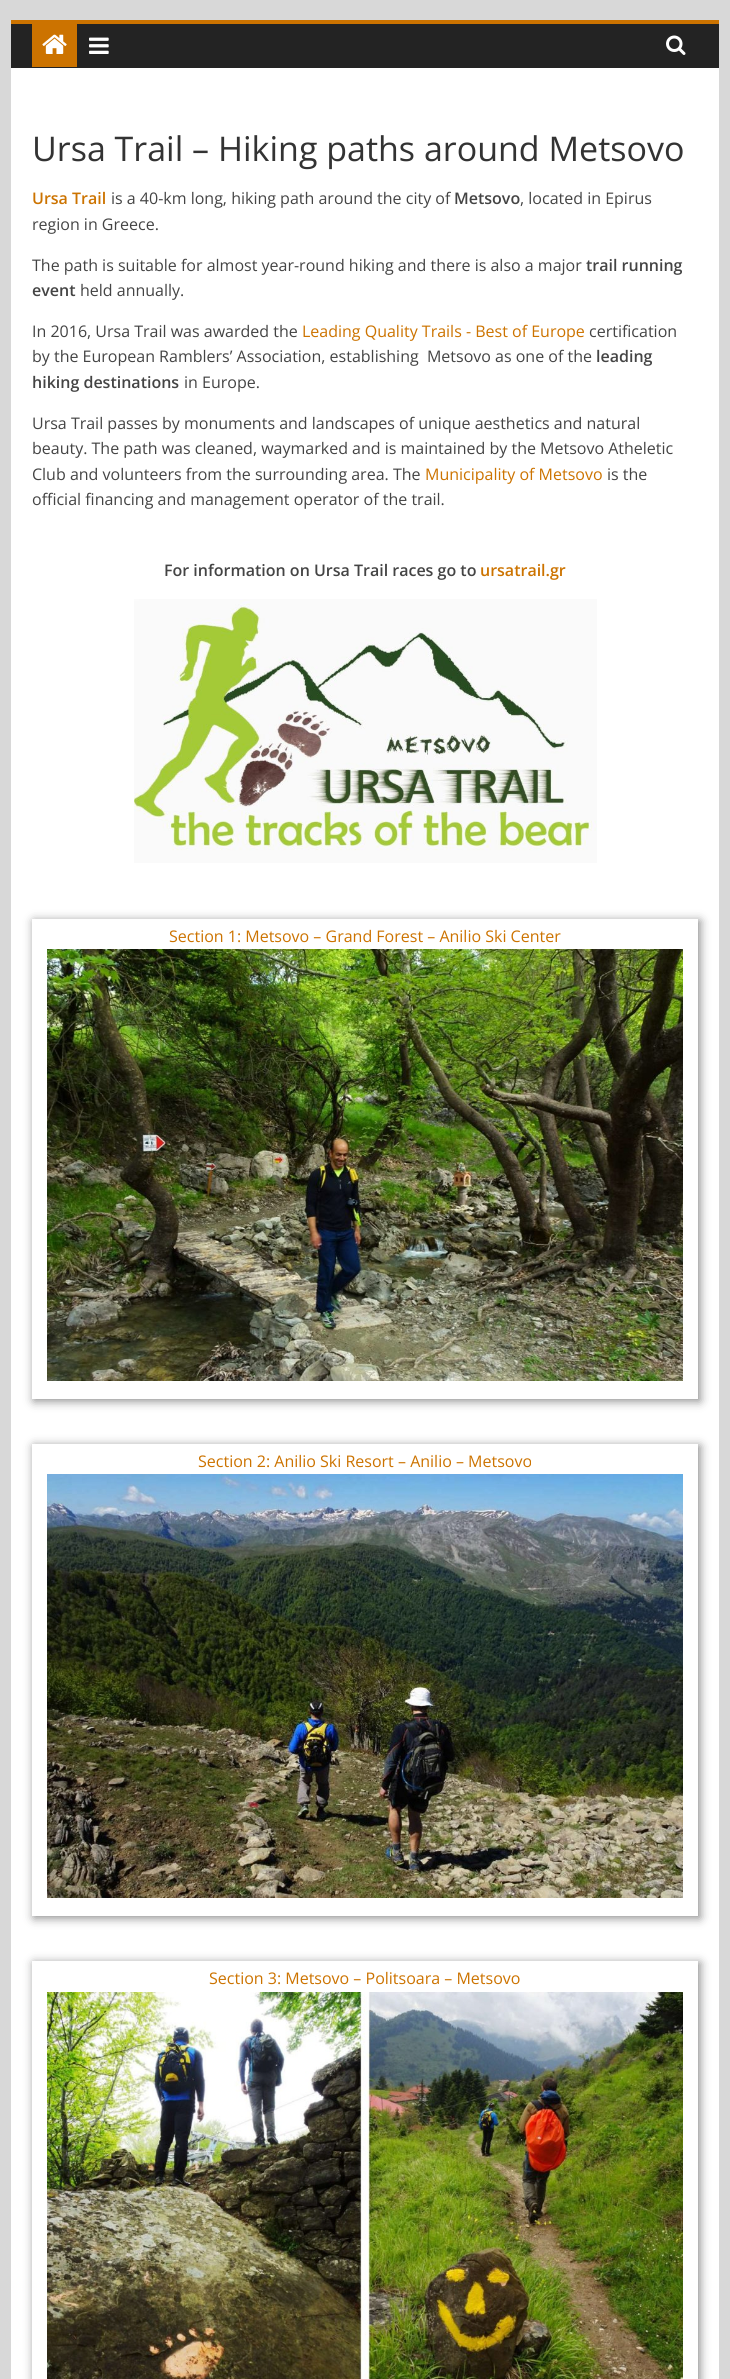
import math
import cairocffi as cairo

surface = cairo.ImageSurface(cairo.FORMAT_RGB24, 730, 2379)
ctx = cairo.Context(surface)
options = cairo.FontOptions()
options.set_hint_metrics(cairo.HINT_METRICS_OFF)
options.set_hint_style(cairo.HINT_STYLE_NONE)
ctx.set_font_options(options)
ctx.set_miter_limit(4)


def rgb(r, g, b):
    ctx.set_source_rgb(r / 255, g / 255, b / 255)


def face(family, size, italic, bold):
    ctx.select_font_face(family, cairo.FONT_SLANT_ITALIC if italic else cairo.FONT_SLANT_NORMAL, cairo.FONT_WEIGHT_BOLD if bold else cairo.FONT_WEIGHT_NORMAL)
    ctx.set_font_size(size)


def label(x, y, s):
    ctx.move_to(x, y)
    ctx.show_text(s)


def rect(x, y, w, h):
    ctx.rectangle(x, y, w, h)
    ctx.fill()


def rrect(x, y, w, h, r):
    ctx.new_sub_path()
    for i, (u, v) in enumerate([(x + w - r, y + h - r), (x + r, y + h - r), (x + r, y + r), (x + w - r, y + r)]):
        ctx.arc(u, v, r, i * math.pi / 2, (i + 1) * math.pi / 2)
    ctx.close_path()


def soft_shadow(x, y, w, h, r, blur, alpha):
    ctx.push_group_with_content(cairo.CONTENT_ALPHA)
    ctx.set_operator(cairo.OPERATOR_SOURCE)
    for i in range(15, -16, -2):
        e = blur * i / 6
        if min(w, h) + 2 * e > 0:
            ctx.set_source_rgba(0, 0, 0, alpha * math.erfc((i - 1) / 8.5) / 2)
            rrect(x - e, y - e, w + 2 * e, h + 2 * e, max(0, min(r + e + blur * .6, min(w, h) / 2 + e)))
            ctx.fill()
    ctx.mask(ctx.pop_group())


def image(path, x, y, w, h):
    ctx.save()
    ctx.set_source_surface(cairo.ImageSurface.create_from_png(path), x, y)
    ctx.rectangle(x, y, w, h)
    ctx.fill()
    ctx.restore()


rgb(216, 216, 216)
ctx.paint()
rgb(35, 35, 35)
rect(11, 24, 708, 44)
rgb(204, 115, 0)
rect(11, 20, 708, 4)
rect(32, 24, 45, 43)
image('image0.png', 42, 34, 25, 20)
image('image1.png', 89, 37, 20, 17)
image('image2.png', 666, 35, 20, 20)
rgb(255, 255, 255)
rect(11, 68, 708, 2311)
face('Open Sans', 34, 0, 0)
rgb(51, 51, 51)
label(32, 161, 'Ursa Trail – Hiking paths around Metsovo')
face('Open Sans SemiBold', 16, 0, 0)
rgb(204, 115, 0)
label(32, 204, 'Ursa Trail')
face('Open Sans', 16, 0, 0)
rgb(68, 68, 68)
label(111, 204, 'is a 40-km long, hiking path around the city of')
face('Open Sans SemiBold', 16, 0, 0)
label(454, 204, 'Metsovo')
face('Open Sans', 16, 0, 0)
label(520, 204, ', located in Epirus')
label(32, 230, 'region in Greece.')
label(32, 271, 'The path is suitable for almost year-round hiking and there is also a major')
face('Open Sans SemiBold', 16, 0, 0)
label(586, 271, 'trail running')
label(32, 296, 'event')
face('Open Sans', 16, 0, 0)
label(80, 296, 'held annually.')
label(32, 337, 'In 2016, Ursa Trail was awarded the')
rgb(204, 115, 0)
label(302, 337, 'Leading Quality Trails - Best of Europe')
rgb(68, 68, 68)
label(589, 337, 'certification')
label(32, 362, 'by the European Ramblers’ Association, establishing  Metsovo as one of the')
face('Open Sans SemiBold', 16, 0, 0)
label(596, 362, 'leading')
label(32, 388, 'hiking destinations')
face('Open Sans', 16, 0, 0)
label(184, 388, 'in Europe.')
label(32, 429, 'Ursa Trail passes by monuments and landscapes of unique aesthetics and natural')
label(32, 454, 'beauty. The path was cleaned, waymarked and is maintained by the Metsovo Atheletic')
label(32, 480, 'Club and volunteers from the surrounding area. The')
rgb(204, 115, 0)
label(425, 480, 'Municipality of Metsovo')
rgb(68, 68, 68)
label(607, 480, 'is the')
label(32, 505, 'official financing and management operator of the trail.')
face('Open Sans SemiBold', 16, 0, 0)
label(164, 576, 'For information on Ursa Trail races go to')
rgb(204, 115, 0)
label(480, 576, 'ursatrail.gr')
image('image3.png', 134, 599, 463, 264)
ctx.save()
ctx.set_fill_rule(cairo.FILL_RULE_EVEN_ODD)
ctx.new_path()
ctx.move_to(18, 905)
ctx.line_to(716, 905)
ctx.line_to(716, 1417)
ctx.line_to(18, 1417)
ctx.close_path()
ctx.move_to(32, 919)
ctx.line_to(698, 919)
ctx.line_to(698, 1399)
ctx.line_to(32, 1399)
ctx.close_path()
ctx.clip()
rgb(136, 136, 136)
soft_shadow(34, 921, 666, 480, 0, 5, 1)
ctx.restore()
face('Open Sans', 16, 0, 0)
label(169, 942, 'Section 1: Metsovo – Grand Forest – Anilio Ski Center')
image('image4.png', 47, 949, 636, 432)
ctx.save()
ctx.set_fill_rule(cairo.FILL_RULE_EVEN_ODD)
ctx.new_path()
ctx.move_to(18, 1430)
ctx.line_to(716, 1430)
ctx.line_to(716, 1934)
ctx.line_to(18, 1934)
ctx.close_path()
ctx.move_to(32, 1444)
ctx.line_to(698, 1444)
ctx.line_to(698, 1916)
ctx.line_to(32, 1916)
ctx.close_path()
ctx.clip()
rgb(136, 136, 136)
soft_shadow(34, 1446, 666, 472, 0, 5, 1)
ctx.restore()
label(198, 1467, 'Section 2: Anilio Ski Resort – Anilio – Metsovo')
image('image5.png', 47, 1474, 636, 424)
ctx.save()
ctx.set_fill_rule(cairo.FILL_RULE_EVEN_ODD)
ctx.new_path()
ctx.move_to(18, 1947)
ctx.line_to(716, 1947)
ctx.line_to(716, 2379)
ctx.line_to(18, 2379)
ctx.close_path()
ctx.move_to(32, 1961)
ctx.line_to(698, 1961)
ctx.line_to(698, 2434)
ctx.line_to(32, 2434)
ctx.close_path()
ctx.clip()
rgb(136, 136, 136)
soft_shadow(34, 1963, 666, 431, 0, 5, 1)
ctx.restore()
label(209, 1984, 'Section 3: Metsovo – Politsoara – Metsovo')
image('image6.png', 47, 1992, 636, 387)
surface.write_to_png('render.png')
